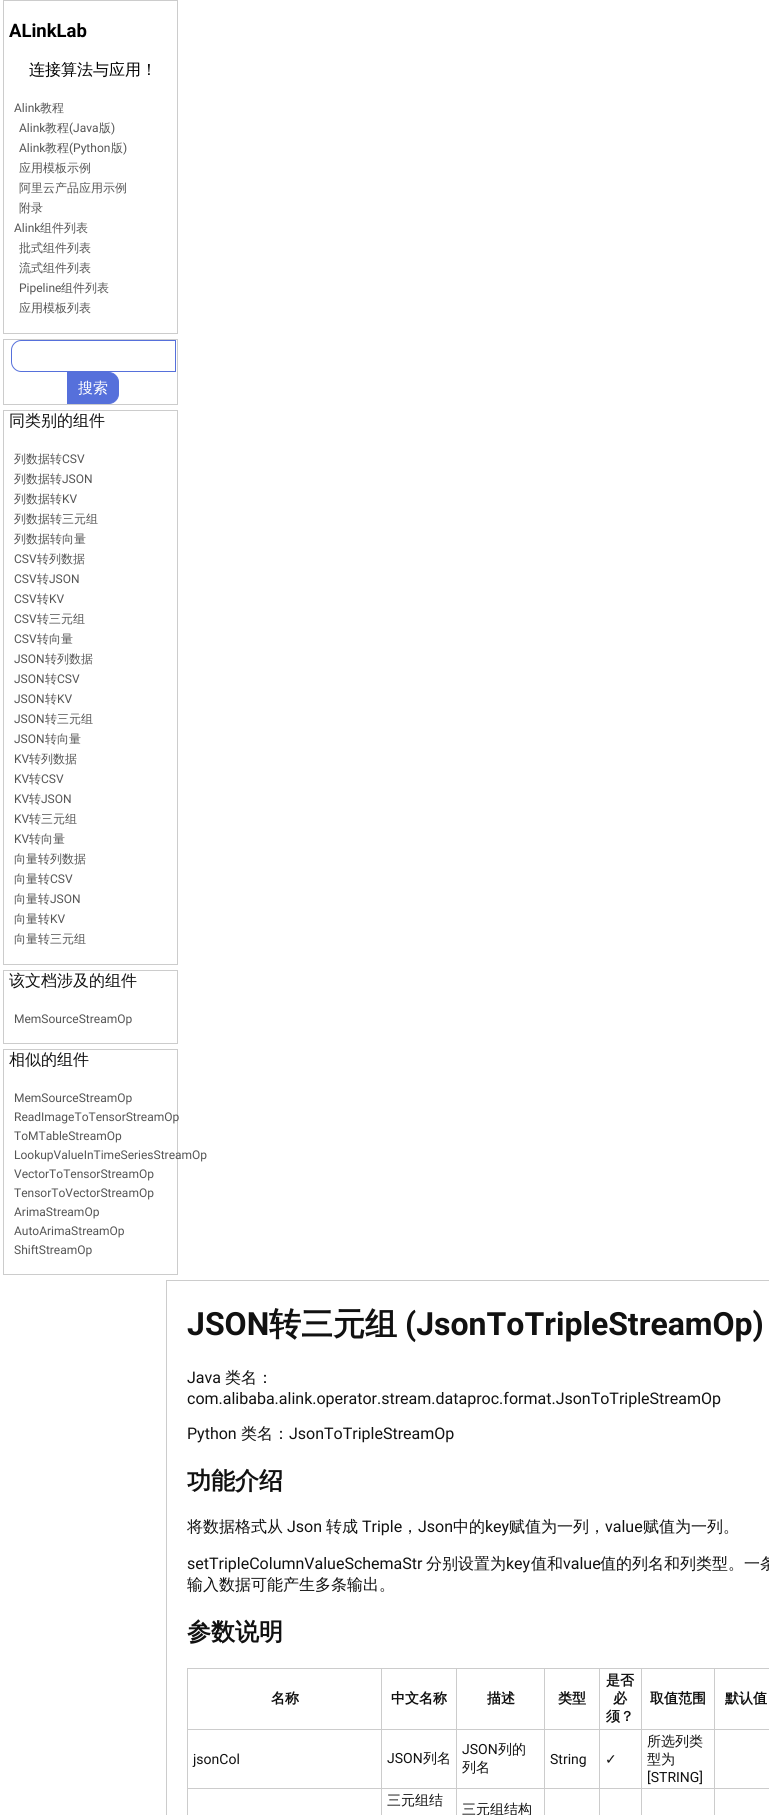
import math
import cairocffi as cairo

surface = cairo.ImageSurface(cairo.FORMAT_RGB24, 769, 1815)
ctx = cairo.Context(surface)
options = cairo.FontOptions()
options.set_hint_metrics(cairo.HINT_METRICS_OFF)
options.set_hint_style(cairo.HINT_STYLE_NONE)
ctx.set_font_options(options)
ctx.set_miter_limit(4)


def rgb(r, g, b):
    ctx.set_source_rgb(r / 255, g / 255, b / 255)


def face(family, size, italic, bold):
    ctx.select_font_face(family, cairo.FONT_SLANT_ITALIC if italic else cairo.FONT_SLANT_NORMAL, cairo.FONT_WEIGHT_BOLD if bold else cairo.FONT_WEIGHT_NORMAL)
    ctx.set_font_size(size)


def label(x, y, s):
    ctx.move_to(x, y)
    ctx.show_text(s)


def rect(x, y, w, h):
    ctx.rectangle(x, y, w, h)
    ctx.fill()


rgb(255, 255, 255)
ctx.paint()
ctx.rectangle(3.5, 0.5, 174, 333)
rgb(204, 204, 204)
ctx.set_line_width(1)
ctx.stroke()
face('Roboto', 18.5, 0, 1)
rgb(0, 0, 0)
label(9, 37, 'ALinkLab')
face('WenQuanYi Zen Hei Medium', 16, 0, 0)
label(29, 75, '连接算法与应用！')
face('Roboto', 12, 0, 0)
rgb(85, 85, 85)
label(14, 112, 'Alink')
face('WenQuanYi Zen Hei Medium', 12, 0, 0)
label(40, 112, '教程')
face('Roboto', 12, 0, 0)
label(19, 132, 'Alink')
face('WenQuanYi Zen Hei Medium', 12, 0, 0)
label(45, 132, '教程')
face('Roboto', 12, 0, 0)
label(69, 132, '(Java')
face('WenQuanYi Zen Hei Medium', 12, 0, 0)
label(99, 132, '版')
face('Roboto', 12, 0, 0)
label(111, 132, ')')
label(19, 152, 'Alink')
face('WenQuanYi Zen Hei Medium', 12, 0, 0)
label(45, 152, '教程')
face('Roboto', 12, 0, 0)
label(69, 152, '(Python')
face('WenQuanYi Zen Hei Medium', 12, 0, 0)
label(111, 152, '版')
face('Roboto', 12, 0, 0)
label(123, 152, ')')
face('WenQuanYi Zen Hei Medium', 12, 0, 0)
label(19, 172, '应用模板示例')
label(19, 192, '阿里云产品应用示例')
label(19, 212, '附录')
face('Roboto', 12, 0, 0)
label(14, 232, 'Alink')
face('WenQuanYi Zen Hei Medium', 12, 0, 0)
label(40, 232, '组件列表')
label(19, 252, '批式组件列表')
label(19, 272, '流式组件列表')
face('Roboto', 12, 0, 0)
label(19, 292, 'Pipeline')
face('WenQuanYi Zen Hei Medium', 12, 0, 0)
label(61, 292, '组件列表')
label(19, 312, '应用模板列表')
ctx.rectangle(3.5, 339.5, 174, 65)
rgb(204, 204, 204)
ctx.stroke()
ctx.new_path()
ctx.move_to(21, 340.5)
ctx.line_to(175.5, 340.5)
ctx.line_to(175.5, 371.5)
ctx.line_to(21, 371.5)
ctx.curve_to(16, 371.5, 11.5, 367, 11.5, 362)
ctx.line_to(11.5, 350)
ctx.curve_to(11.5, 345, 16, 340.5, 21, 340.5)
ctx.close_path()
rgb(86, 112, 219)
ctx.stroke()
ctx.new_path()
ctx.move_to(67.5, 372.5)
ctx.line_to(109, 372.5)
ctx.curve_to(114, 372.5, 118.5, 377, 118.5, 382)
ctx.line_to(118.5, 394)
ctx.curve_to(118.5, 399, 114, 403.5, 109, 403.5)
ctx.line_to(67.5, 403.5)
ctx.close_path()
ctx.fill_preserve()
ctx.stroke()
face('WenQuanYi Zen Hei Medium', 15, 0, 0)
rgb(255, 255, 255)
label(78, 393, '搜索')
ctx.rectangle(3.5, 410.5, 174, 554)
rgb(204, 204, 204)
ctx.stroke()
face('WenQuanYi Zen Hei Medium', 16, 0, 0)
rgb(17, 17, 17)
label(9, 426, '同类别的组件')
face('WenQuanYi Zen Hei Medium', 12, 0, 0)
rgb(85, 85, 85)
label(14, 463, '列数据转')
face('Roboto', 12, 0, 0)
label(62, 463, 'CSV')
face('WenQuanYi Zen Hei Medium', 12, 0, 0)
label(14, 483, '列数据转')
face('Roboto', 12, 0, 0)
label(62, 483, 'JSON')
face('WenQuanYi Zen Hei Medium', 12, 0, 0)
label(14, 503, '列数据转')
face('Roboto', 12, 0, 0)
label(62, 503, 'KV')
face('WenQuanYi Zen Hei Medium', 12, 0, 0)
label(14, 523, '列数据转三元组')
label(14, 543, '列数据转向量')
face('Roboto', 12, 0, 0)
label(14, 563, 'CSV')
face('WenQuanYi Zen Hei Medium', 12, 0, 0)
label(37, 563, '转列数据')
face('Roboto', 12, 0, 0)
label(14, 583, 'CSV')
face('WenQuanYi Zen Hei Medium', 12, 0, 0)
label(37, 583, '转')
face('Roboto', 12, 0, 0)
label(49, 583, 'JSON')
label(14, 603, 'CSV')
face('WenQuanYi Zen Hei Medium', 12, 0, 0)
label(37, 603, '转')
face('Roboto', 12, 0, 0)
label(49, 603, 'KV')
label(14, 623, 'CSV')
face('WenQuanYi Zen Hei Medium', 12, 0, 0)
label(37, 623, '转三元组')
face('Roboto', 12, 0, 0)
label(14, 643, 'CSV')
face('WenQuanYi Zen Hei Medium', 12, 0, 0)
label(37, 643, '转向量')
face('Roboto', 12, 0, 0)
label(14, 663, 'JSON')
face('WenQuanYi Zen Hei Medium', 12, 0, 0)
label(45, 663, '转列数据')
face('Roboto', 12, 0, 0)
label(14, 683, 'JSON')
face('WenQuanYi Zen Hei Medium', 12, 0, 0)
label(45, 683, '转')
face('Roboto', 12, 0, 0)
label(57, 683, 'CSV')
label(14, 703, 'JSON')
face('WenQuanYi Zen Hei Medium', 12, 0, 0)
label(45, 703, '转')
face('Roboto', 12, 0, 0)
label(57, 703, 'KV')
label(14, 723, 'JSON')
face('WenQuanYi Zen Hei Medium', 12, 0, 0)
label(45, 723, '转三元组')
face('Roboto', 12, 0, 0)
label(14, 743, 'JSON')
face('WenQuanYi Zen Hei Medium', 12, 0, 0)
label(45, 743, '转向量')
face('Roboto', 12, 0, 0)
label(14, 763, 'KV')
face('WenQuanYi Zen Hei Medium', 12, 0, 0)
label(29, 763, '转列数据')
face('Roboto', 12, 0, 0)
label(14, 783, 'KV')
face('WenQuanYi Zen Hei Medium', 12, 0, 0)
label(29, 783, '转')
face('Roboto', 12, 0, 0)
label(41, 783, 'CSV')
label(14, 803, 'KV')
face('WenQuanYi Zen Hei Medium', 12, 0, 0)
label(29, 803, '转')
face('Roboto', 12, 0, 0)
label(41, 803, 'JSON')
label(14, 823, 'KV')
face('WenQuanYi Zen Hei Medium', 12, 0, 0)
label(29, 823, '转三元组')
face('Roboto', 12, 0, 0)
label(14, 843, 'KV')
face('WenQuanYi Zen Hei Medium', 12, 0, 0)
label(29, 843, '转向量')
label(14, 863, '向量转列数据')
label(14, 883, '向量转')
face('Roboto', 12, 0, 0)
label(50, 883, 'CSV')
face('WenQuanYi Zen Hei Medium', 12, 0, 0)
label(14, 903, '向量转')
face('Roboto', 12, 0, 0)
label(50, 903, 'JSON')
face('WenQuanYi Zen Hei Medium', 12, 0, 0)
label(14, 923, '向量转')
face('Roboto', 12, 0, 0)
label(50, 923, 'KV')
face('WenQuanYi Zen Hei Medium', 12, 0, 0)
label(14, 943, '向量转三元组')
ctx.rectangle(3.5, 970.5, 174, 73)
rgb(204, 204, 204)
ctx.stroke()
face('WenQuanYi Zen Hei Medium', 16, 0, 0)
rgb(17, 17, 17)
label(9, 986, '该文档涉及的组件')
face('Roboto', 12, 0, 0)
rgb(85, 85, 85)
label(14, 1023, 'MemSourceStreamOp')
ctx.rectangle(3.5, 1049.5, 174, 225)
rgb(204, 204, 204)
ctx.stroke()
face('WenQuanYi Zen Hei Medium', 16, 0, 0)
rgb(17, 17, 17)
label(9, 1065, '相似的组件')
face('Roboto', 12, 0, 0)
rgb(85, 85, 85)
label(14, 1102, 'MemSourceStreamOp')
label(14, 1121, 'ReadImageToTensorStreamOp')
label(14, 1140, 'ToMTableStreamOp')
label(14, 1159, 'LookupValueInTimeSeriesStreamOp')
label(14, 1178, 'VectorToTensorStreamOp')
label(14, 1197, 'TensorToVectorStreamOp')
label(14, 1216, 'ArimaStreamOp')
label(14, 1235, 'AutoArimaStreamOp')
label(14, 1254, 'ShiftStreamOp')
ctx.rectangle(166.5, 1280.5, 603, 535)
rgb(204, 204, 204)
ctx.stroke()
face('Roboto', 32, 0, 1)
rgb(17, 17, 17)
label(187, 1335, 'JSON')
face('WenQuanYi Zen Hei', 32, 0, 1)
label(269, 1335, '转三元组')
face('Roboto', 32, 0, 1)
label(405, 1335, '(JsonToTripleStreamOp)')
face('Roboto', 16, 0, 0)
label(187, 1383, 'Java')
face('WenQuanYi Zen Hei Medium', 16, 0, 0)
label(225, 1383, '类名：')
face('Roboto', 16, 0, 0)
label(187, 1404, 'com.alibaba.alink.operator.stream.dataproc.format.JsonToTripleStreamOp')
label(187, 1439, 'Python')
face('WenQuanYi Zen Hei Medium', 16, 0, 0)
label(241, 1439, '类名：')
face('Roboto', 16, 0, 0)
label(289, 1439, 'JsonToTripleStreamOp')
face('WenQuanYi Zen Hei', 24, 0, 1)
label(187, 1489, '功能介绍')
face('WenQuanYi Zen Hei Medium', 16, 0, 0)
label(187, 1532, '将数据格式从')
face('Roboto', 16, 0, 0)
label(287, 1532, 'Json')
face('WenQuanYi Zen Hei Medium', 16, 0, 0)
label(326, 1532, '转成')
face('Roboto', 16, 0, 0)
label(362, 1532, 'Triple')
face('WenQuanYi Zen Hei Medium', 16, 0, 0)
label(402, 1532, '，')
face('Roboto', 16, 0, 0)
label(418, 1532, 'Json')
face('WenQuanYi Zen Hei Medium', 16, 0, 0)
label(453, 1532, '中的')
face('Roboto', 16, 0, 0)
label(485, 1532, 'key')
face('WenQuanYi Zen Hei Medium', 16, 0, 0)
label(509, 1532, '赋值为一列，')
face('Roboto', 16, 0, 0)
label(605, 1532, 'value')
face('WenQuanYi Zen Hei Medium', 16, 0, 0)
label(643, 1532, '赋值为一列。')
face('Roboto', 16, 0, 0)
label(187, 1569, 'setTripleColumnValueSchemaStr')
face('WenQuanYi Zen Hei Medium', 16, 0, 0)
label(426, 1569, '分别设置为')
face('Roboto', 16, 0, 0)
label(506, 1569, 'key')
face('WenQuanYi Zen Hei Medium', 16, 0, 0)
label(531, 1569, '值和')
face('Roboto', 16, 0, 0)
label(563, 1569, 'value')
face('WenQuanYi Zen Hei Medium', 16, 0, 0)
label(600, 1569, '值的列名和列类型。一条')
label(187, 1590, '输入数据可能产生多条输出。')
face('WenQuanYi Zen Hei', 24, 0, 1)
label(187, 1640, '参数说明')
rgb(204, 204, 204)
rect(187, 1668, 582, 1)
rect(187, 1668, 1, 147)
face('WenQuanYi Zen Hei', 14, 0, 1)
rgb(17, 17, 17)
label(271, 1703, '名称')
rgb(204, 204, 204)
rect(714, 1729, 55, 1)
rect(714, 1788, 55, 1)
rect(714, 1788, 1, 27)
rect(641, 1788, 74, 1)
rect(714, 1729, 1, 60)
rect(641, 1729, 74, 1)
rect(641, 1788, 1, 27)
rect(599, 1788, 43, 1)
rect(641, 1729, 1, 60)
rect(599, 1729, 43, 1)
rect(599, 1788, 1, 27)
rect(544, 1788, 56, 1)
rect(599, 1729, 1, 60)
rect(544, 1729, 56, 1)
rect(544, 1788, 1, 27)
rect(456, 1788, 89, 1)
rect(544, 1729, 1, 60)
rect(456, 1729, 89, 1)
rect(456, 1788, 1, 27)
rect(381, 1788, 76, 1)
rect(456, 1729, 1, 60)
rect(381, 1729, 76, 1)
rect(381, 1788, 1, 27)
rect(187, 1788, 195, 1)
rect(381, 1729, 1, 60)
rect(187, 1729, 195, 1)
rect(381, 1668, 1, 62)
rgb(17, 17, 17)
label(391, 1703, '中文名称')
rgb(204, 204, 204)
rect(456, 1668, 1, 62)
rgb(17, 17, 17)
label(487, 1703, '描述')
rgb(204, 204, 204)
rect(544, 1668, 1, 62)
rgb(17, 17, 17)
label(558, 1703, '类型')
rgb(204, 204, 204)
rect(599, 1668, 1, 62)
rgb(17, 17, 17)
label(606, 1685, '是否')
label(613, 1703, '必')
label(606, 1721, '须？')
rgb(204, 204, 204)
rect(641, 1668, 1, 62)
rgb(17, 17, 17)
label(650, 1703, '取值范围')
rgb(204, 204, 204)
rect(714, 1668, 1, 62)
rgb(17, 17, 17)
label(725, 1703, '默认值')
face('Roboto', 14, 0, 0)
label(193, 1764, 'jsonCol')
label(387, 1763, 'JSON')
face('WenQuanYi Zen Hei Medium', 14, 0, 0)
label(423, 1763, '列名')
face('Roboto', 14, 0, 0)
label(462, 1754, 'JSON')
face('WenQuanYi Zen Hei Medium', 14, 0, 0)
label(498, 1754, '列的')
label(462, 1772, '列名')
face('Roboto', 14, 0, 0)
label(550, 1764, 'String')
face('DejaVu Sans', 14, 0, 0)
label(605, 1764, '✓')
face('WenQuanYi Zen Hei Medium', 14, 0, 0)
label(647, 1746, '所选列类')
label(647, 1764, '型为')
face('Roboto', 14, 0, 0)
label(647, 1782, '[STRING]')
face('WenQuanYi Zen Hei Medium', 14, 0, 0)
label(387, 1805, '三元组结')
label(462, 1814, '三元组结构')
surface.write_to_png('render.png')
